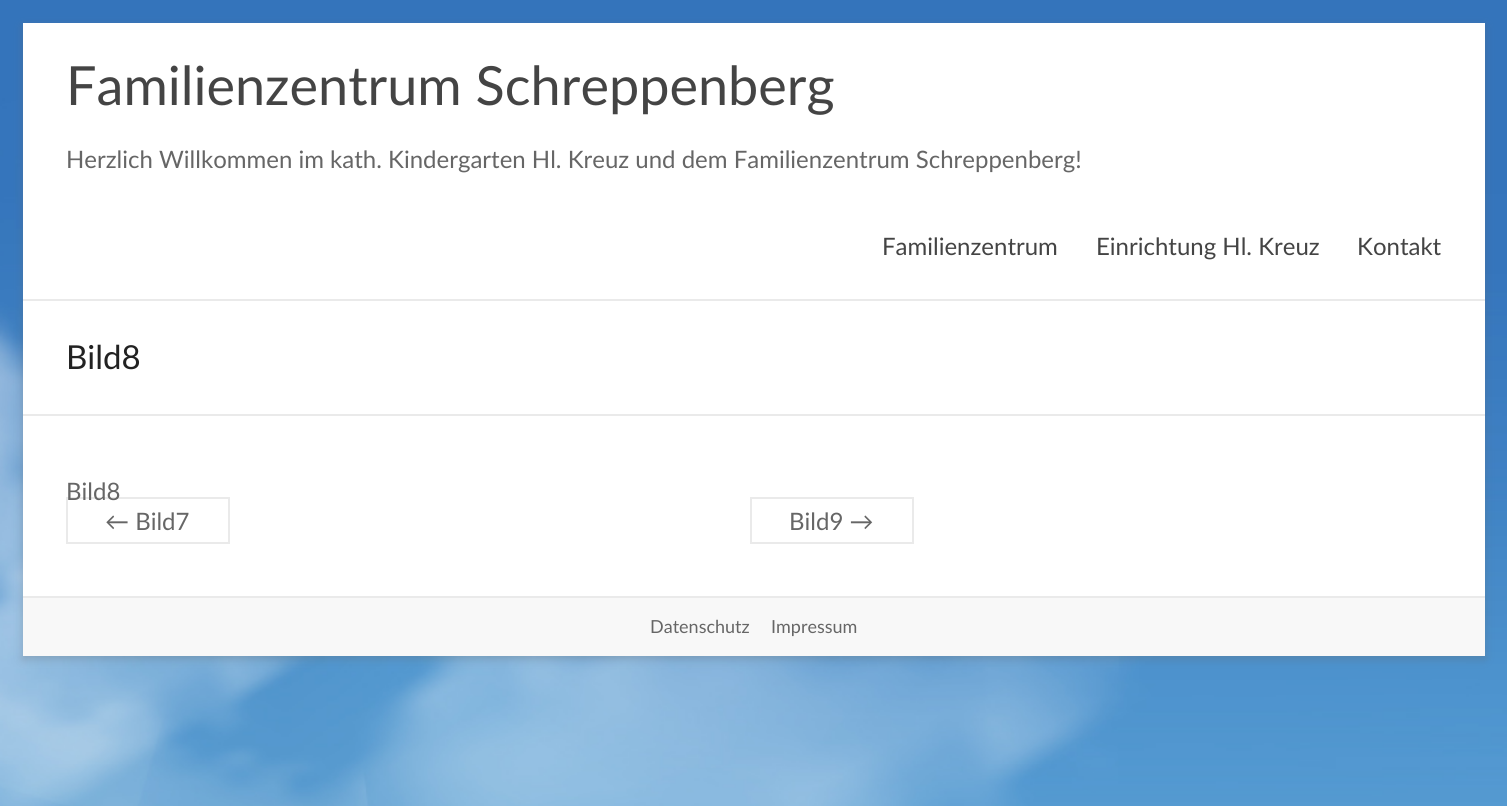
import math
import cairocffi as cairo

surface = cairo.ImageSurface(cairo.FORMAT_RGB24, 1507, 806)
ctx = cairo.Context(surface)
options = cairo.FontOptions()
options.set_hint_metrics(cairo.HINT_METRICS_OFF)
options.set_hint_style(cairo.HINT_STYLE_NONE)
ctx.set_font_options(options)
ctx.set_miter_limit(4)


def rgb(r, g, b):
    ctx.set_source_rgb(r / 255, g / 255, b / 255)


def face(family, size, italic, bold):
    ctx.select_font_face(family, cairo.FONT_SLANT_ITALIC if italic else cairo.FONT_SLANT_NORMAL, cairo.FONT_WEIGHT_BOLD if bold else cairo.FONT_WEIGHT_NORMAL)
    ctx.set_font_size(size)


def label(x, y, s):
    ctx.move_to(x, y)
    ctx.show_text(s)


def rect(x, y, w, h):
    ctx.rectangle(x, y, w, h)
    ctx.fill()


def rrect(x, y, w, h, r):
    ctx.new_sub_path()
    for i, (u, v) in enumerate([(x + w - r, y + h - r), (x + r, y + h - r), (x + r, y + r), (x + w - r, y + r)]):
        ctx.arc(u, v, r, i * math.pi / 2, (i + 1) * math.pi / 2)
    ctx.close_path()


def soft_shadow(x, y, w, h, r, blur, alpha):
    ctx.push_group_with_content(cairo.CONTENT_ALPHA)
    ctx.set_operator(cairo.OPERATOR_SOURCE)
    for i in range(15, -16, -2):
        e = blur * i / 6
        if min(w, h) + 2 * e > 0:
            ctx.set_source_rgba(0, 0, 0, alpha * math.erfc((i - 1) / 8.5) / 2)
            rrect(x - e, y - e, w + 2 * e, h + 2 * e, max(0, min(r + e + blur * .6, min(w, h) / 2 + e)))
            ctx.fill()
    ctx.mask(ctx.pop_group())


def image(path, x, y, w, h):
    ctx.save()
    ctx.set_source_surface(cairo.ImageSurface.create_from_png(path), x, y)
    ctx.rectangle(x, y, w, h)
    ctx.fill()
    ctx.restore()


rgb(255, 255, 255)
ctx.paint()
image('image0.png', 0, 0, 1507, 806)
rgb(100, 100, 100)
soft_shadow(23, 26, 1462, 633, 0, 4.5, 0.3)
rgb(255, 255, 255)
rect(23, 23, 1462, 573)
rgb(234, 234, 234)
rect(23, 299, 1462, 2)
face('Lato', 54, 0, 0)
rgb(68, 68, 68)
label(66, 105, 'Familienzentrum Schreppenberg')
face('Lato', 24, 0, 0)
rgb(102, 102, 102)
label(66, 168, 'Herzlich Willkommen im kath. Kindergarten Hl. Kreuz und dem Familienzentrum Schreppenberg!')
rgb(68, 68, 68)
label(882, 255, 'Familienzentrum')
label(1096, 255, 'Einrichtung Hl. Kreuz')
label(1357, 255, 'Kontakt')
rgb(234, 234, 234)
rect(23, 414, 1462, 2)
face('Lato', 33, 0, 0)
rgb(34, 34, 34)
label(66, 369, 'Bild8')
rgb(234, 234, 234)
rect(66, 497, 164, 2)
face('Lato', 24, 0, 0)
rgb(102, 102, 102)
label(66, 500, 'Bild8')
label(105, 530, '← Bild7')
rgb(234, 234, 234)
rect(66, 542, 63, 2)
rect(66, 497, 2, 46)
rect(228, 497, 2, 46)
rect(129, 542, 101, 2)
rgb(102, 102, 102)
label(789, 530, 'Bild9 →')
rgb(234, 234, 234)
rect(750, 497, 164, 2)
rect(750, 542, 101, 2)
rect(750, 497, 2, 46)
rect(912, 497, 2, 46)
rect(851, 542, 63, 2)
rgb(248, 248, 248)
rect(23, 598, 1462, 58)
rgb(234, 234, 234)
rect(23, 596, 1462, 2)
face('Lato', 18, 0, 0)
rgb(102, 102, 102)
label(650, 633, 'Datenschutz')
label(771, 633, 'Impressum')
surface.write_to_png('render.png')
